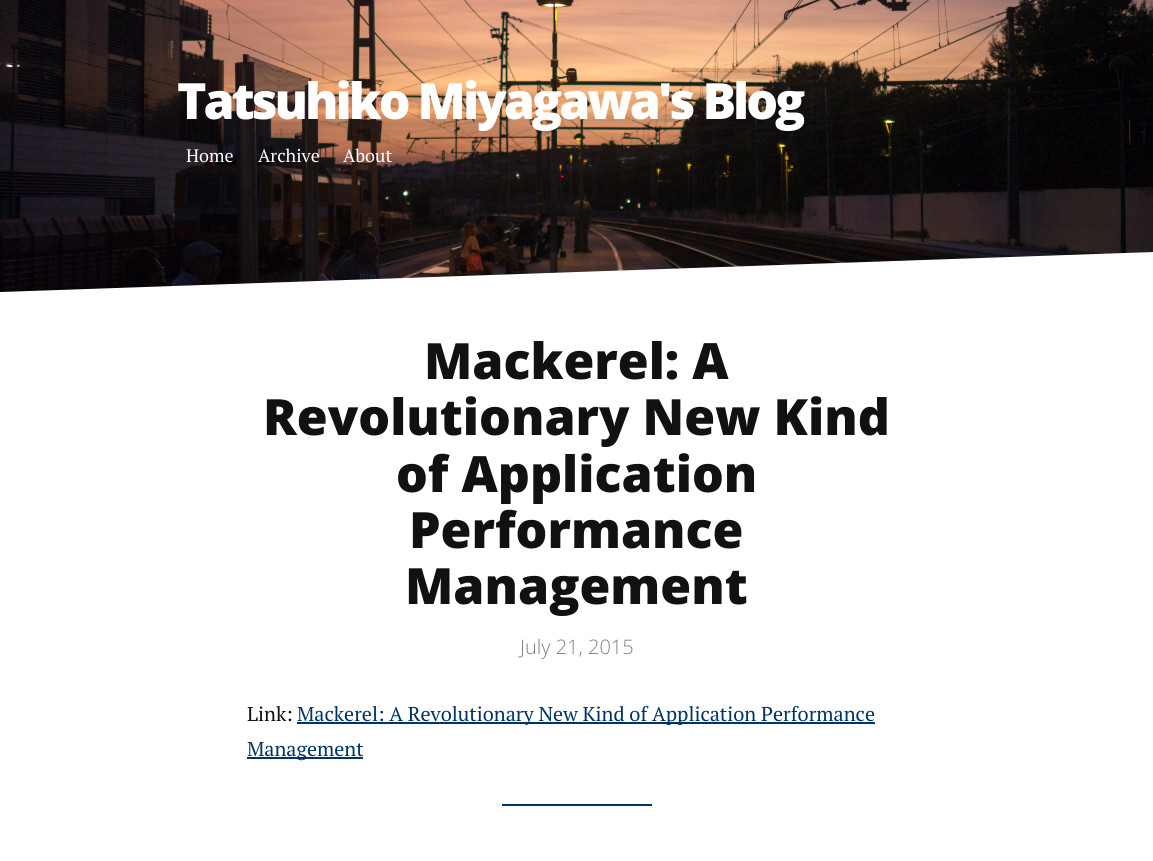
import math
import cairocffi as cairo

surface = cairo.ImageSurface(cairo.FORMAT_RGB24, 1153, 861)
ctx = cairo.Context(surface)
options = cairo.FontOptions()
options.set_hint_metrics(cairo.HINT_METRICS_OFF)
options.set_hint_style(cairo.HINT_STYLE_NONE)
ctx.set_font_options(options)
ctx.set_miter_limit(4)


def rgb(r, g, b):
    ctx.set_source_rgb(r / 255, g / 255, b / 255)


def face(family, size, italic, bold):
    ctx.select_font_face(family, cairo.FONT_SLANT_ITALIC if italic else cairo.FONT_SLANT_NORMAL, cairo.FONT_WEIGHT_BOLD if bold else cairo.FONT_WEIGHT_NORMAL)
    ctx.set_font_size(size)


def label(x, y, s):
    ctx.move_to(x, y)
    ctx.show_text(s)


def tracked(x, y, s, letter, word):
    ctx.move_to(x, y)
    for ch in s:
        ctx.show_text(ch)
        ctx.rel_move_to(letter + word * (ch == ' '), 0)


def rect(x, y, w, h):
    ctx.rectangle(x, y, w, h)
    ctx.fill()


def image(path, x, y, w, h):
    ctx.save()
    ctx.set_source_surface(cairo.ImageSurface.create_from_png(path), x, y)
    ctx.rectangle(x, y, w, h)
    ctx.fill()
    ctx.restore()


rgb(255, 255, 255)
ctx.paint()
image('image0.png', 0, 0, 1153, 292)
face('Open Sans ExtraBold', 50, 0, 0)
rgb(255, 255, 255)
tracked(177, 119, 'Tatsuhiko Miyagawa\'s Blog', -3, 0)
face('PT Serif', 18, 0, 0)
label(186, 162, 'Home')
label(258, 162, 'Archive')
label(343, 162, 'About')
ctx.new_path()
ctx.move_to(0, 292)
ctx.line_to(1153, 252)
ctx.line_to(1153, 452)
ctx.line_to(0, 492)
ctx.close_path()
ctx.fill()
face('Open Sans ExtraBold', 50, 0, 0)
rgb(17, 17, 17)
label(424, 379, 'Mackerel: A')
label(263, 435, 'Revolutionary New Kind')
label(396, 492, 'of Application')
label(409, 548, 'Performance')
label(405, 604, 'Management')
face('Open Sans Light', 20, 0, 0)
rgb(128, 128, 128)
label(520, 654, 'July 21, 2015')
face('PT Serif', 20, 0, 0)
rgb(17, 17, 17)
label(247, 721, 'Link:')
rgb(0, 51, 102)
rect(297, 722, 578, 2)
label(297, 721, 'Mackerel: A Revolutionary New Kind of Application Performance')
rect(247, 757, 116, 2)
label(247, 756, 'Management')
rect(502, 804, 150, 2)
surface.write_to_png('render.png')
